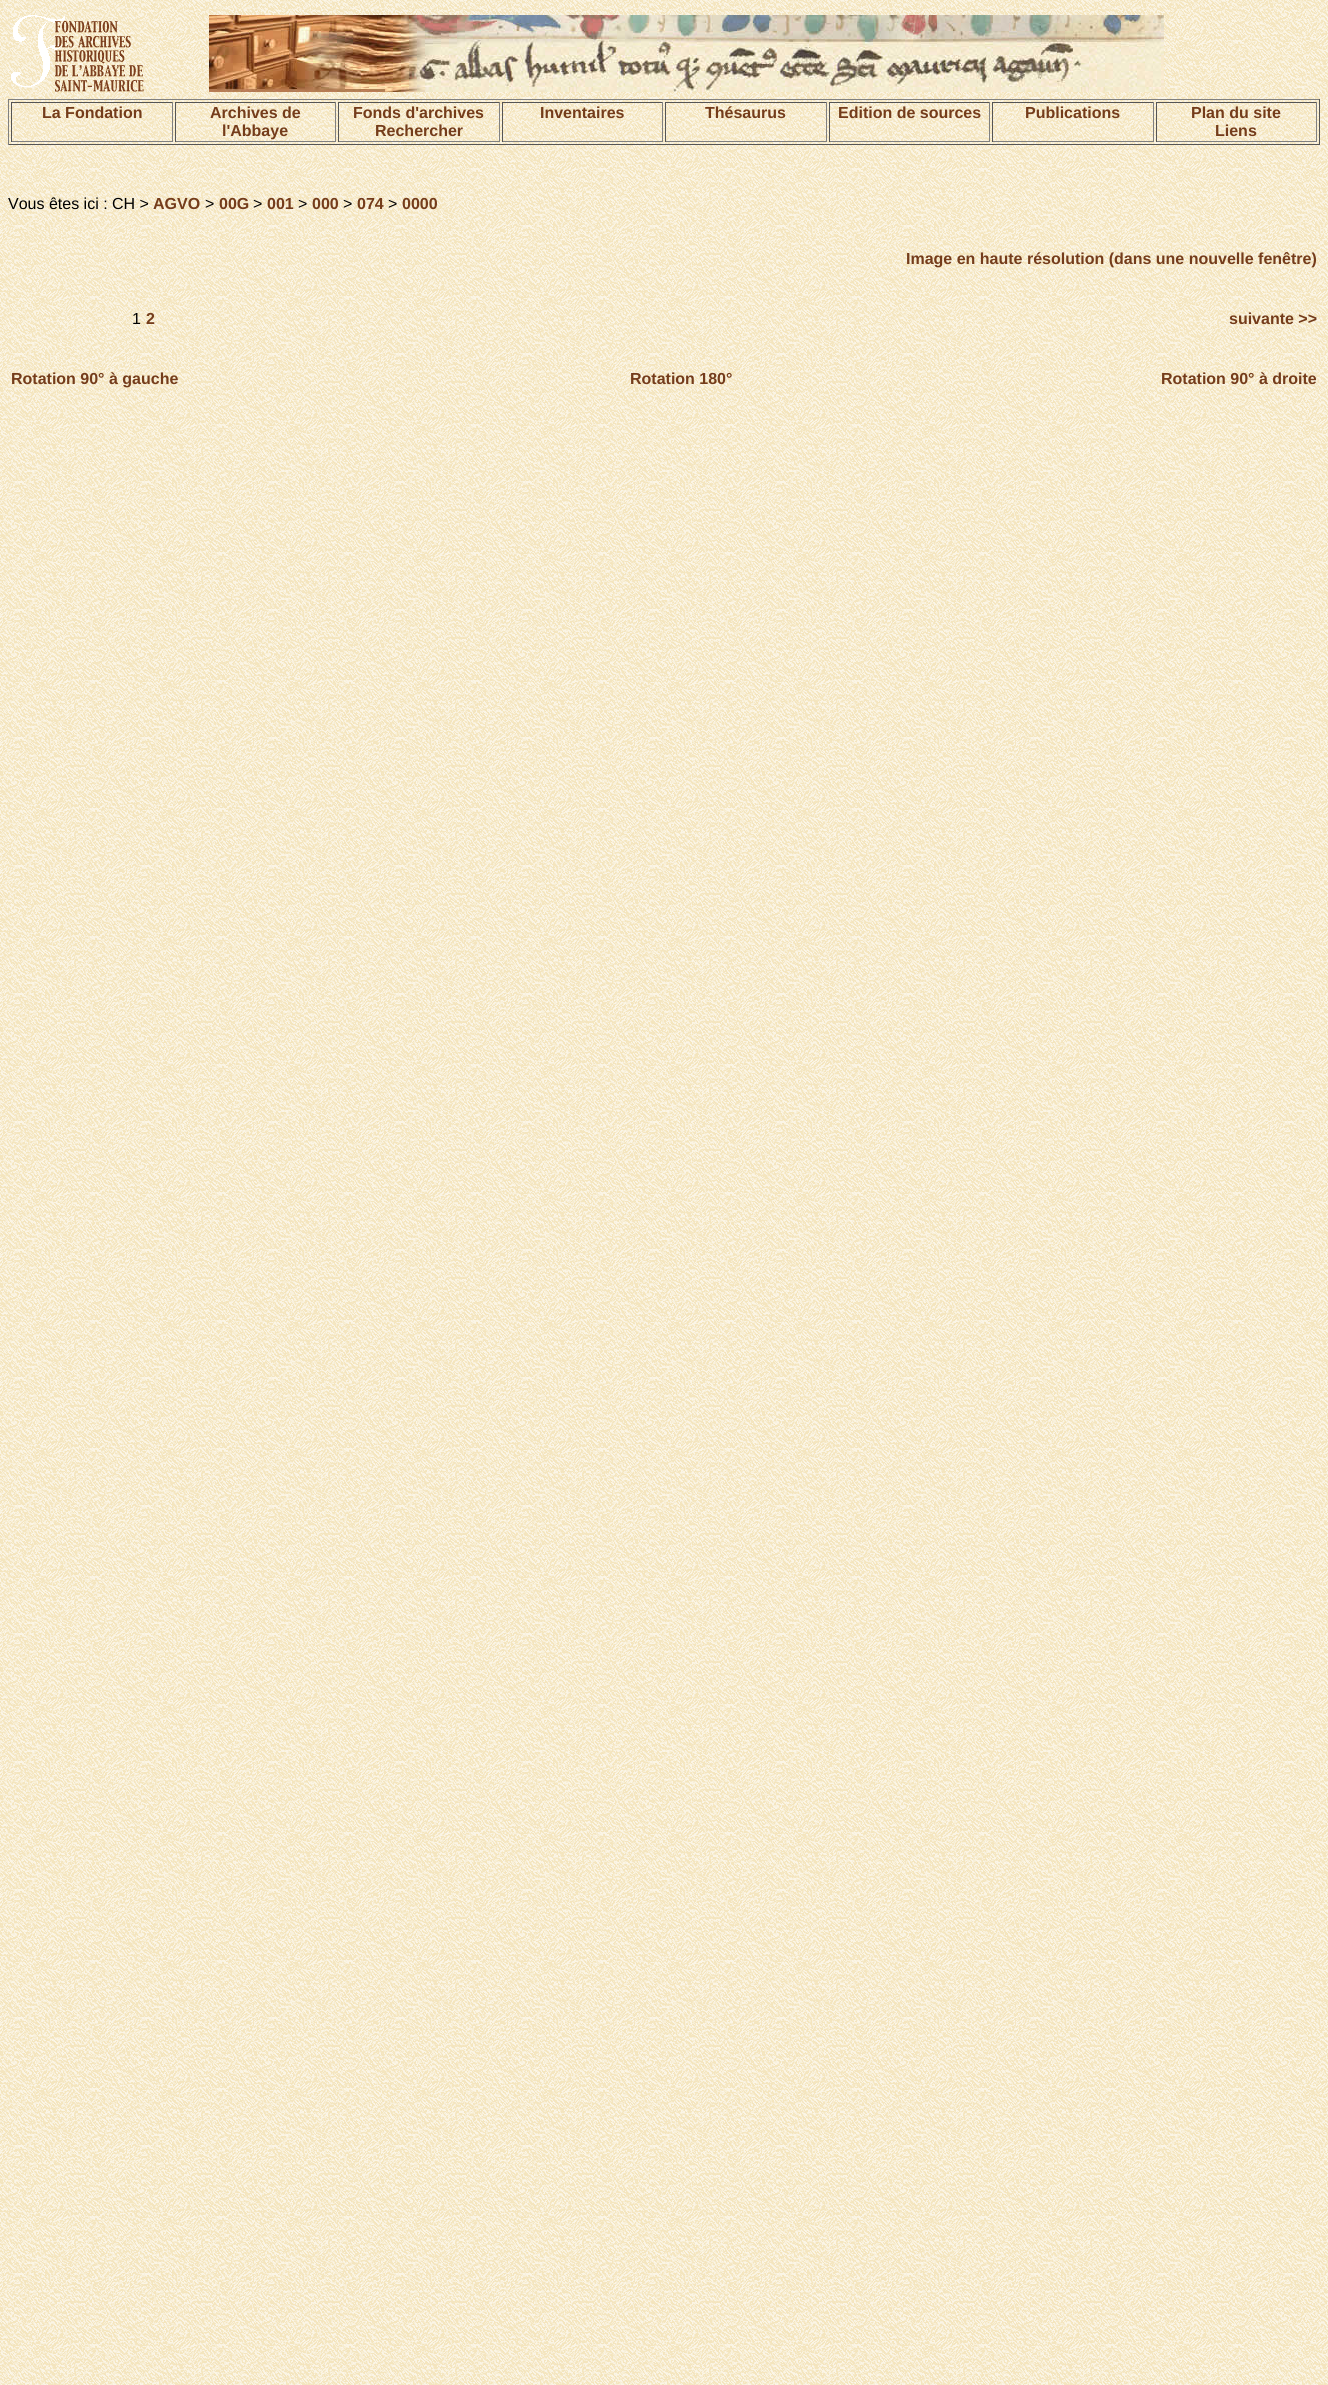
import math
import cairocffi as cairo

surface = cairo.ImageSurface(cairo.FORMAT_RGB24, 1328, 2385)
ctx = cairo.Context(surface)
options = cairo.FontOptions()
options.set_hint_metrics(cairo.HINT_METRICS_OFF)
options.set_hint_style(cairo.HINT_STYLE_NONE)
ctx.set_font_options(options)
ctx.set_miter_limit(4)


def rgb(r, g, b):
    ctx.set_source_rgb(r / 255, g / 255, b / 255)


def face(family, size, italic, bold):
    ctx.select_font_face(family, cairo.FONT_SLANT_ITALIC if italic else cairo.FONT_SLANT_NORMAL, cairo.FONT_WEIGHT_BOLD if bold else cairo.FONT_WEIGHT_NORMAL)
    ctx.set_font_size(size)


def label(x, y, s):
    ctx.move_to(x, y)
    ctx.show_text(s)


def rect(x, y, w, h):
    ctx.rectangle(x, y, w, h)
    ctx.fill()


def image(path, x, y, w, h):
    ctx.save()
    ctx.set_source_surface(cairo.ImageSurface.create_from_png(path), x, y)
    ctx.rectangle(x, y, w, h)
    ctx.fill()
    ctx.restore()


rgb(255, 255, 255)
ctx.paint()
image('image0.png', 0, 0, 1328, 2385)
image('image1.png', 11, 15, 133, 77)
image('image2.png', 209, 15, 955, 77)
rgb(128, 128, 128)
rect(8, 99, 1312, 1)
rgb(85, 85, 85)
rect(1319, 99, 1, 46)
rect(8, 144, 1312, 1)
rgb(128, 128, 128)
rect(8, 99, 1, 46)
rgb(85, 85, 85)
rect(11, 102, 162, 1)
rgb(128, 128, 128)
rect(172, 102, 1, 40)
rect(11, 141, 162, 1)
rgb(85, 85, 85)
rect(11, 102, 1, 40)
face('Liberation Sans', 16, 0, 1)
rgb(116, 60, 27)
label(42, 118, 'La Fondation')
rgb(85, 85, 85)
rect(175, 102, 161, 1)
rgb(128, 128, 128)
rect(335, 102, 1, 40)
rect(175, 141, 161, 1)
rgb(85, 85, 85)
rect(175, 102, 1, 40)
rgb(116, 60, 27)
label(210, 118, 'Archives de')
label(222, 136, 'l\'Abbaye')
rgb(85, 85, 85)
rect(338, 102, 162, 1)
rgb(128, 128, 128)
rect(499, 102, 1, 40)
rect(338, 141, 162, 1)
rgb(85, 85, 85)
rect(338, 102, 1, 40)
rgb(116, 60, 27)
label(353, 118, 'Fonds d\'archives')
label(375, 136, 'Rechercher')
rgb(85, 85, 85)
rect(502, 102, 161, 1)
rgb(128, 128, 128)
rect(662, 102, 1, 40)
rect(502, 141, 161, 1)
rgb(85, 85, 85)
rect(502, 102, 1, 40)
rgb(116, 60, 27)
label(540, 118, 'Inventaires')
rgb(85, 85, 85)
rect(665, 102, 162, 1)
rgb(128, 128, 128)
rect(826, 102, 1, 40)
rect(665, 141, 162, 1)
rgb(85, 85, 85)
rect(665, 102, 1, 40)
rgb(116, 60, 27)
label(705, 118, 'Thésaurus')
rgb(85, 85, 85)
rect(829, 102, 161, 1)
rgb(128, 128, 128)
rect(989, 102, 1, 40)
rect(829, 141, 161, 1)
rgb(85, 85, 85)
rect(829, 102, 1, 40)
rgb(116, 60, 27)
label(838, 118, 'Edition de sources')
rgb(85, 85, 85)
rect(992, 102, 162, 1)
rgb(128, 128, 128)
rect(1153, 102, 1, 40)
rect(992, 141, 162, 1)
rgb(85, 85, 85)
rect(992, 102, 1, 40)
rgb(116, 60, 27)
label(1025, 118, 'Publications')
rgb(85, 85, 85)
rect(1156, 102, 161, 1)
rgb(128, 128, 128)
rect(1316, 102, 1, 40)
rect(1156, 141, 161, 1)
rgb(85, 85, 85)
rect(1156, 102, 1, 40)
rgb(116, 60, 27)
label(1191, 118, 'Plan du site')
label(1215, 136, 'Liens')
face('Liberation Sans', 16, 0, 0)
rgb(0, 0, 0)
label(8, 209, 'Vous êtes ici : CH >')
face('Liberation Sans', 16, 0, 1)
rgb(116, 60, 27)
label(153, 209, 'AGVO')
face('Liberation Sans', 16, 0, 0)
rgb(0, 0, 0)
label(205, 209, '>')
face('Liberation Sans', 16, 0, 1)
rgb(116, 60, 27)
label(219, 209, '00G')
face('Liberation Sans', 16, 0, 0)
rgb(0, 0, 0)
label(253, 209, '>')
face('Liberation Sans', 16, 0, 1)
rgb(116, 60, 27)
label(267, 209, '001')
face('Liberation Sans', 16, 0, 0)
rgb(0, 0, 0)
label(298, 209, '>')
face('Liberation Sans', 16, 0, 1)
rgb(116, 60, 27)
label(312, 209, '000')
face('Liberation Sans', 16, 0, 0)
rgb(0, 0, 0)
label(343, 209, '>')
face('Liberation Sans', 16, 0, 1)
rgb(116, 60, 27)
label(357, 209, '074')
face('Liberation Sans', 16, 0, 0)
rgb(0, 0, 0)
label(388, 209, '>')
face('Liberation Sans', 16, 0, 1)
rgb(116, 60, 27)
label(402, 209, '0000')
label(906, 264, 'Image en haute résolution (dans une nouvelle fenêtre)')
face('Liberation Sans', 16, 0, 0)
rgb(0, 0, 0)
label(132, 324, '1')
face('Liberation Sans', 16, 0, 1)
rgb(116, 60, 27)
label(146, 324, '2')
label(1229, 324, 'suivante >>')
label(11, 384, 'Rotation 90° à gauche')
label(630, 384, 'Rotation 180°')
label(1161, 384, 'Rotation 90° à droite')
surface.write_to_png('render.png')
